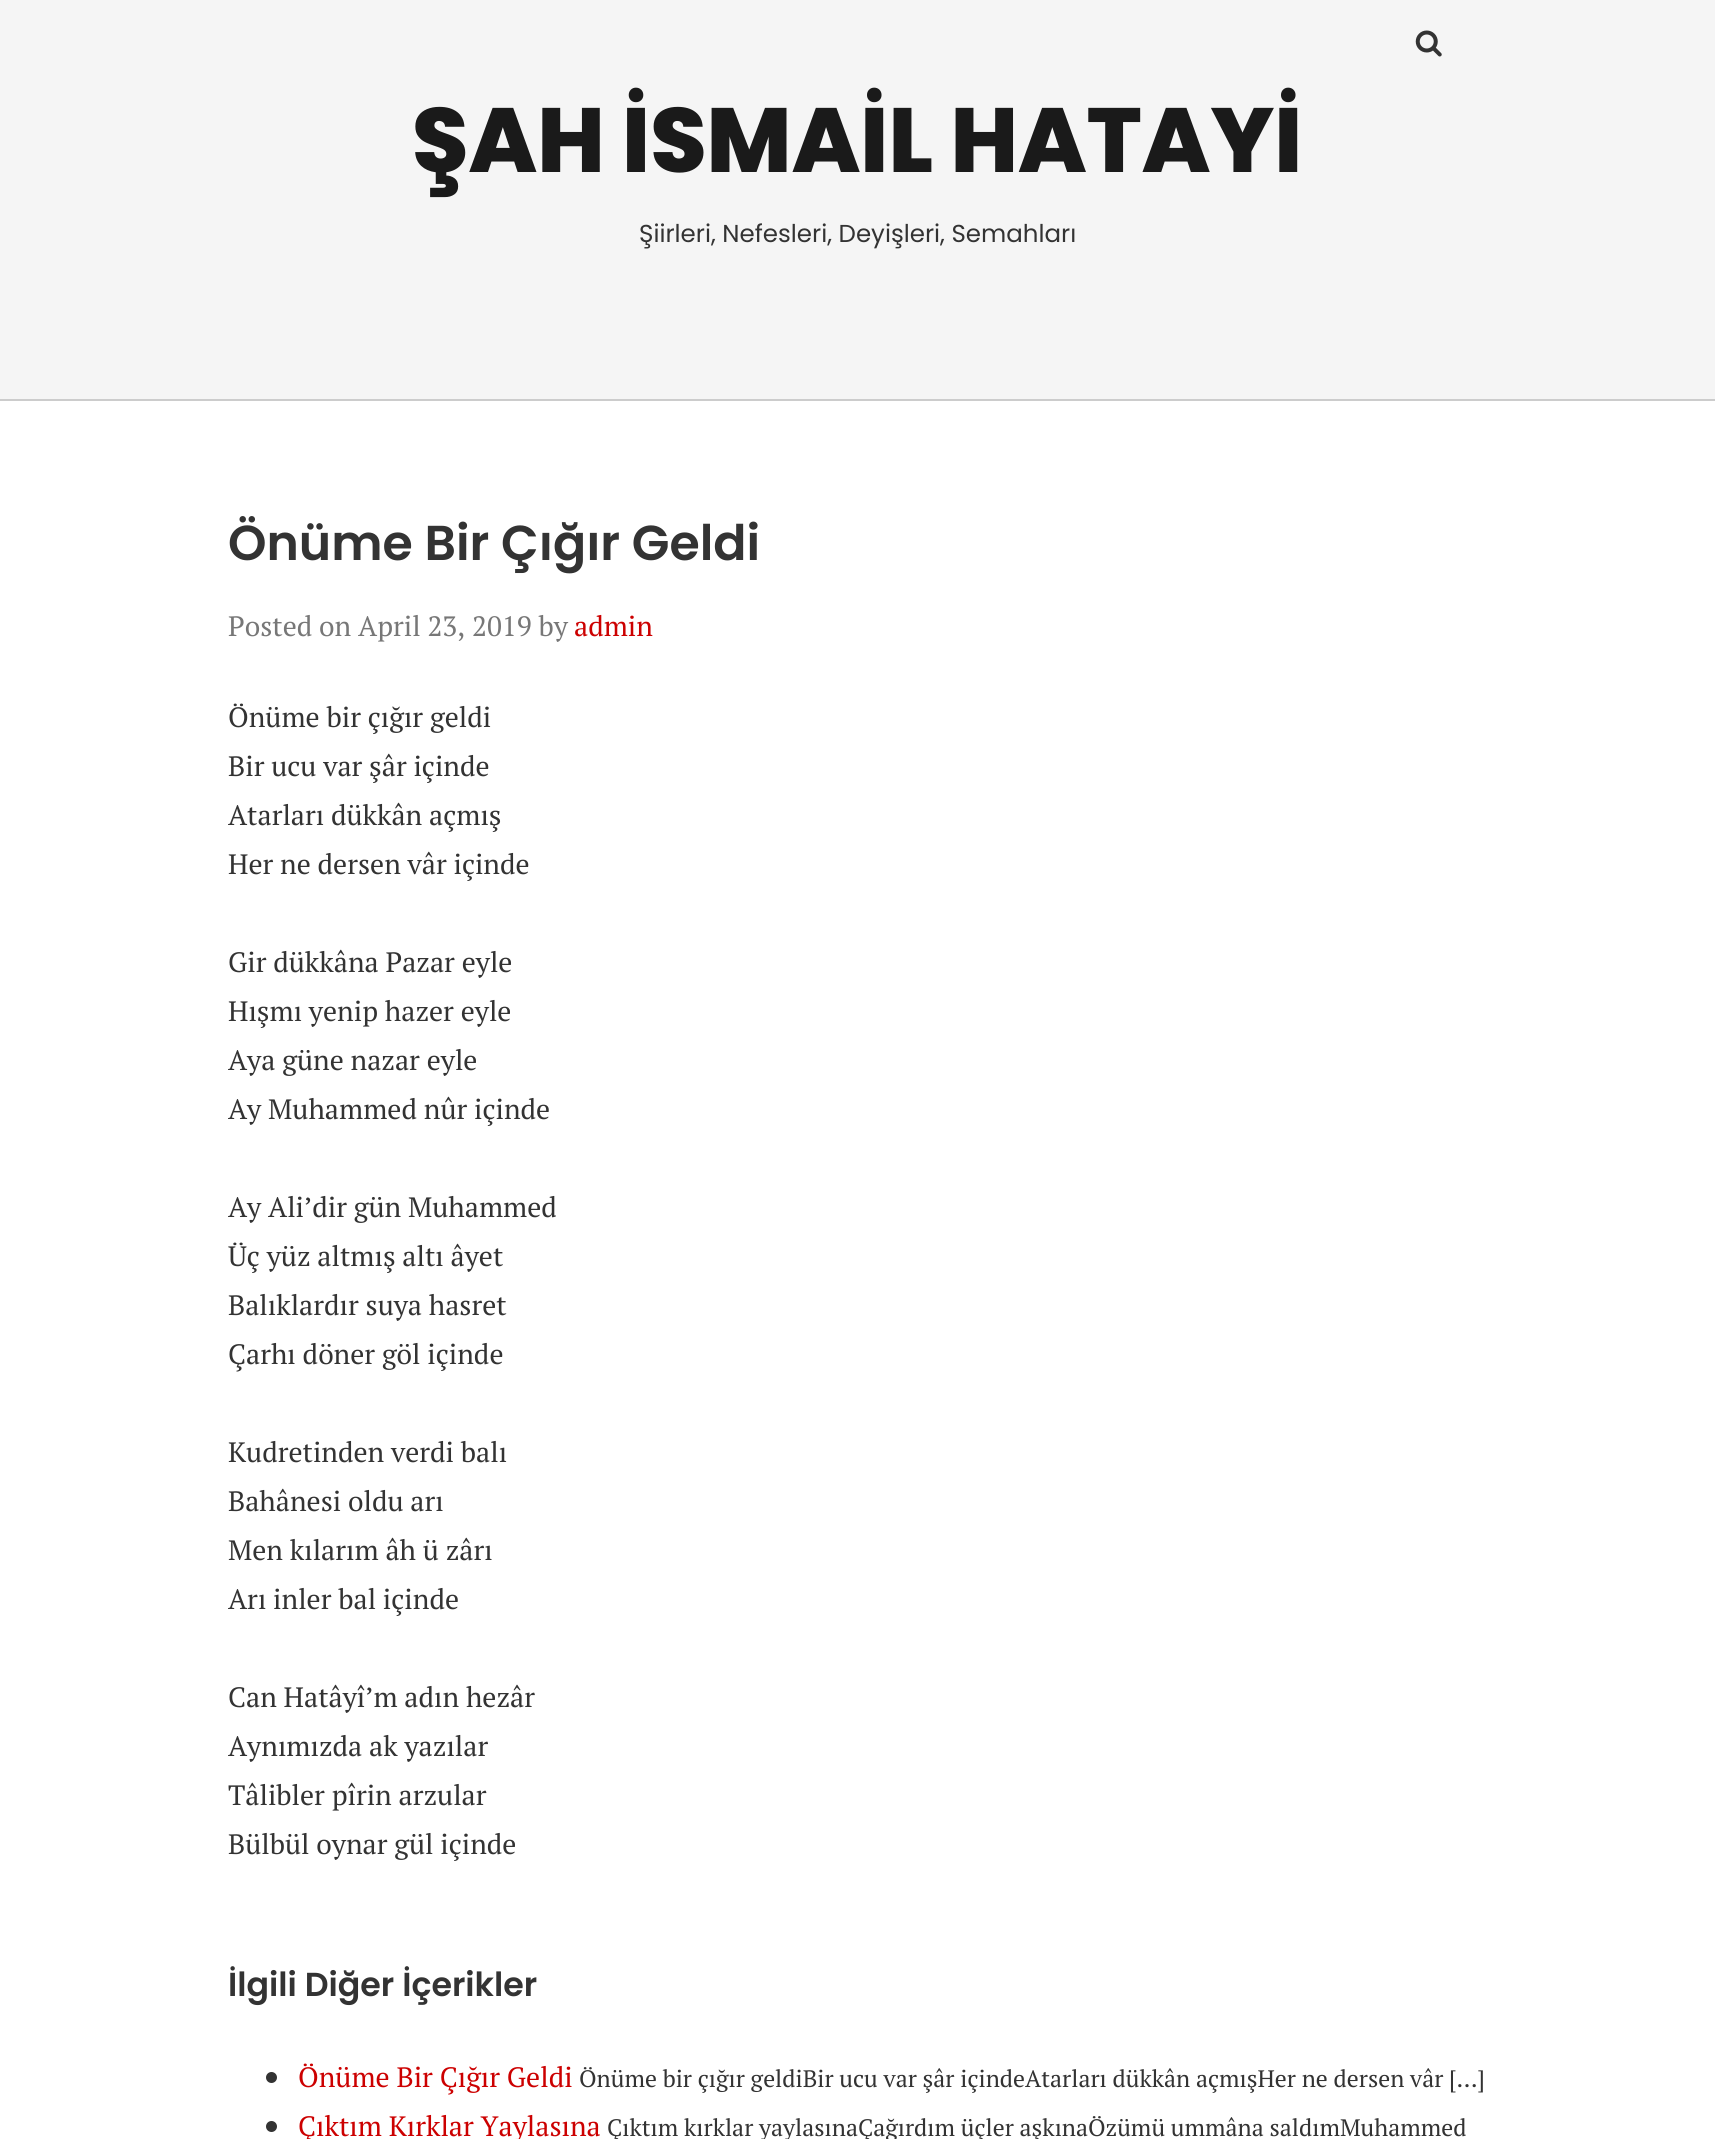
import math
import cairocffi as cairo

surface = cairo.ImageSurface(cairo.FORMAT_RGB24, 1715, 2139)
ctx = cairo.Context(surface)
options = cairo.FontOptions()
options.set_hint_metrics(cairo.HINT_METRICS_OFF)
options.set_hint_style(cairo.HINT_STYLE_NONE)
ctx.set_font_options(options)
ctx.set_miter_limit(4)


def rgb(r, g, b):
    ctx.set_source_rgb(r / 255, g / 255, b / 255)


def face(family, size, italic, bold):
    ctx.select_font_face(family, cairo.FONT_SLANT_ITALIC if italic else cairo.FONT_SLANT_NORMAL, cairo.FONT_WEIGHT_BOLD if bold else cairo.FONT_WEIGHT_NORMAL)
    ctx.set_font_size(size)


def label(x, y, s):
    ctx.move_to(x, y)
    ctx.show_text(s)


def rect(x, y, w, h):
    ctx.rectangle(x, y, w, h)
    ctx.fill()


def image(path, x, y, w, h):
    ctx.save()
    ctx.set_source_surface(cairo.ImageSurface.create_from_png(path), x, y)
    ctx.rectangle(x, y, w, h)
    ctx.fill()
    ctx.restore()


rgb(255, 255, 255)
ctx.paint()
rgb(245, 245, 245)
rect(0, 0, 1715, 399)
rgb(204, 204, 204)
rect(0, 399, 1715, 2)
image('image0.png', 1415, 30, 27, 27)
face('Poppins ExtraBold', 91, 0, 0)
rgb(26, 26, 26)
label(412, 172, 'ŞAH İSMAİL HATAYİ')
face('Poppins', 24.5, 0, 0)
rgb(51, 51, 51)
label(639, 242, 'Şiirleri, Nefesleri, Deyişleri, Semahları')
face('Poppins SemiBold', 49, 0, 0)
label(228, 560, 'Önüme Bir Çığır Geldi')
face('PT Serif', 28, 0, 0)
rgb(119, 119, 119)
label(228, 636, 'Posted on April 23, 2019 by')
rgb(204, 0, 0)
label(574, 636, 'admin')
rgb(51, 51, 51)
label(228, 727, 'Önüme bir çığır geldi')
label(228, 776, 'Bir ucu var şâr içinde')
label(228, 825, 'Atarları dükkân açmış')
label(228, 874, 'Her ne dersen vâr içinde')
label(228, 972, 'Gir dükkâna Pazar eyle')
label(228, 1021, 'Hışmı yenip hazer eyle')
label(228, 1070, 'Aya güne nazar eyle')
label(228, 1119, 'Ay Muhammed nûr içinde')
label(228, 1217, 'Ay Ali’dir gün Muhammed')
label(228, 1266, 'Üç yüz altmış altı âyet')
label(228, 1315, 'Balıklardır suya hasret')
label(228, 1364, 'Çarhı döner göl içinde')
label(228, 1462, 'Kudretinden verdi balı')
label(228, 1511, 'Bahânesi oldu arı')
label(228, 1560, 'Men kılarım âh ü zârı')
label(228, 1609, 'Arı inler bal içinde')
label(228, 1707, 'Can Hatâyî’m adın hezâr')
label(228, 1756, 'Aynımızda ak yazılar')
label(228, 1805, 'Tâlibler pîrin arzular')
label(228, 1854, 'Bülbül oynar gül içinde')
face('Poppins SemiBold', 33.25, 0, 0)
label(228, 1996, 'İlgili Diğer İçerikler')
ctx.new_path()
ctx.arc(271.5, 2077.5, 5.5, 0, 2 * math.pi)
ctx.fill()
face('PT Serif', 28, 0, 0)
rgb(204, 0, 0)
label(298, 2087, 'Önüme Bir Çığır Geldi')
face('PT Serif', 23.8, 0, 0)
rgb(51, 51, 51)
label(579, 2087, 'Önüme bir çığır geldiBir ucu var şâr içindeAtarları dükkân açmışHer ne dersen vâr […]')
ctx.new_path()
ctx.arc(271.5, 2126.5, 5.5, 0, 2 * math.pi)
ctx.fill()
face('PT Serif', 28, 0, 0)
rgb(204, 0, 0)
label(298, 2136, 'Çıktım Kırklar Yaylasına')
face('PT Serif', 23.8, 0, 0)
rgb(51, 51, 51)
label(607, 2136, 'Çıktım kırklar yaylasınaÇağırdım üçler aşkınaÖzümü ummâna saldımMuhammed')
surface.write_to_png('render.png')
